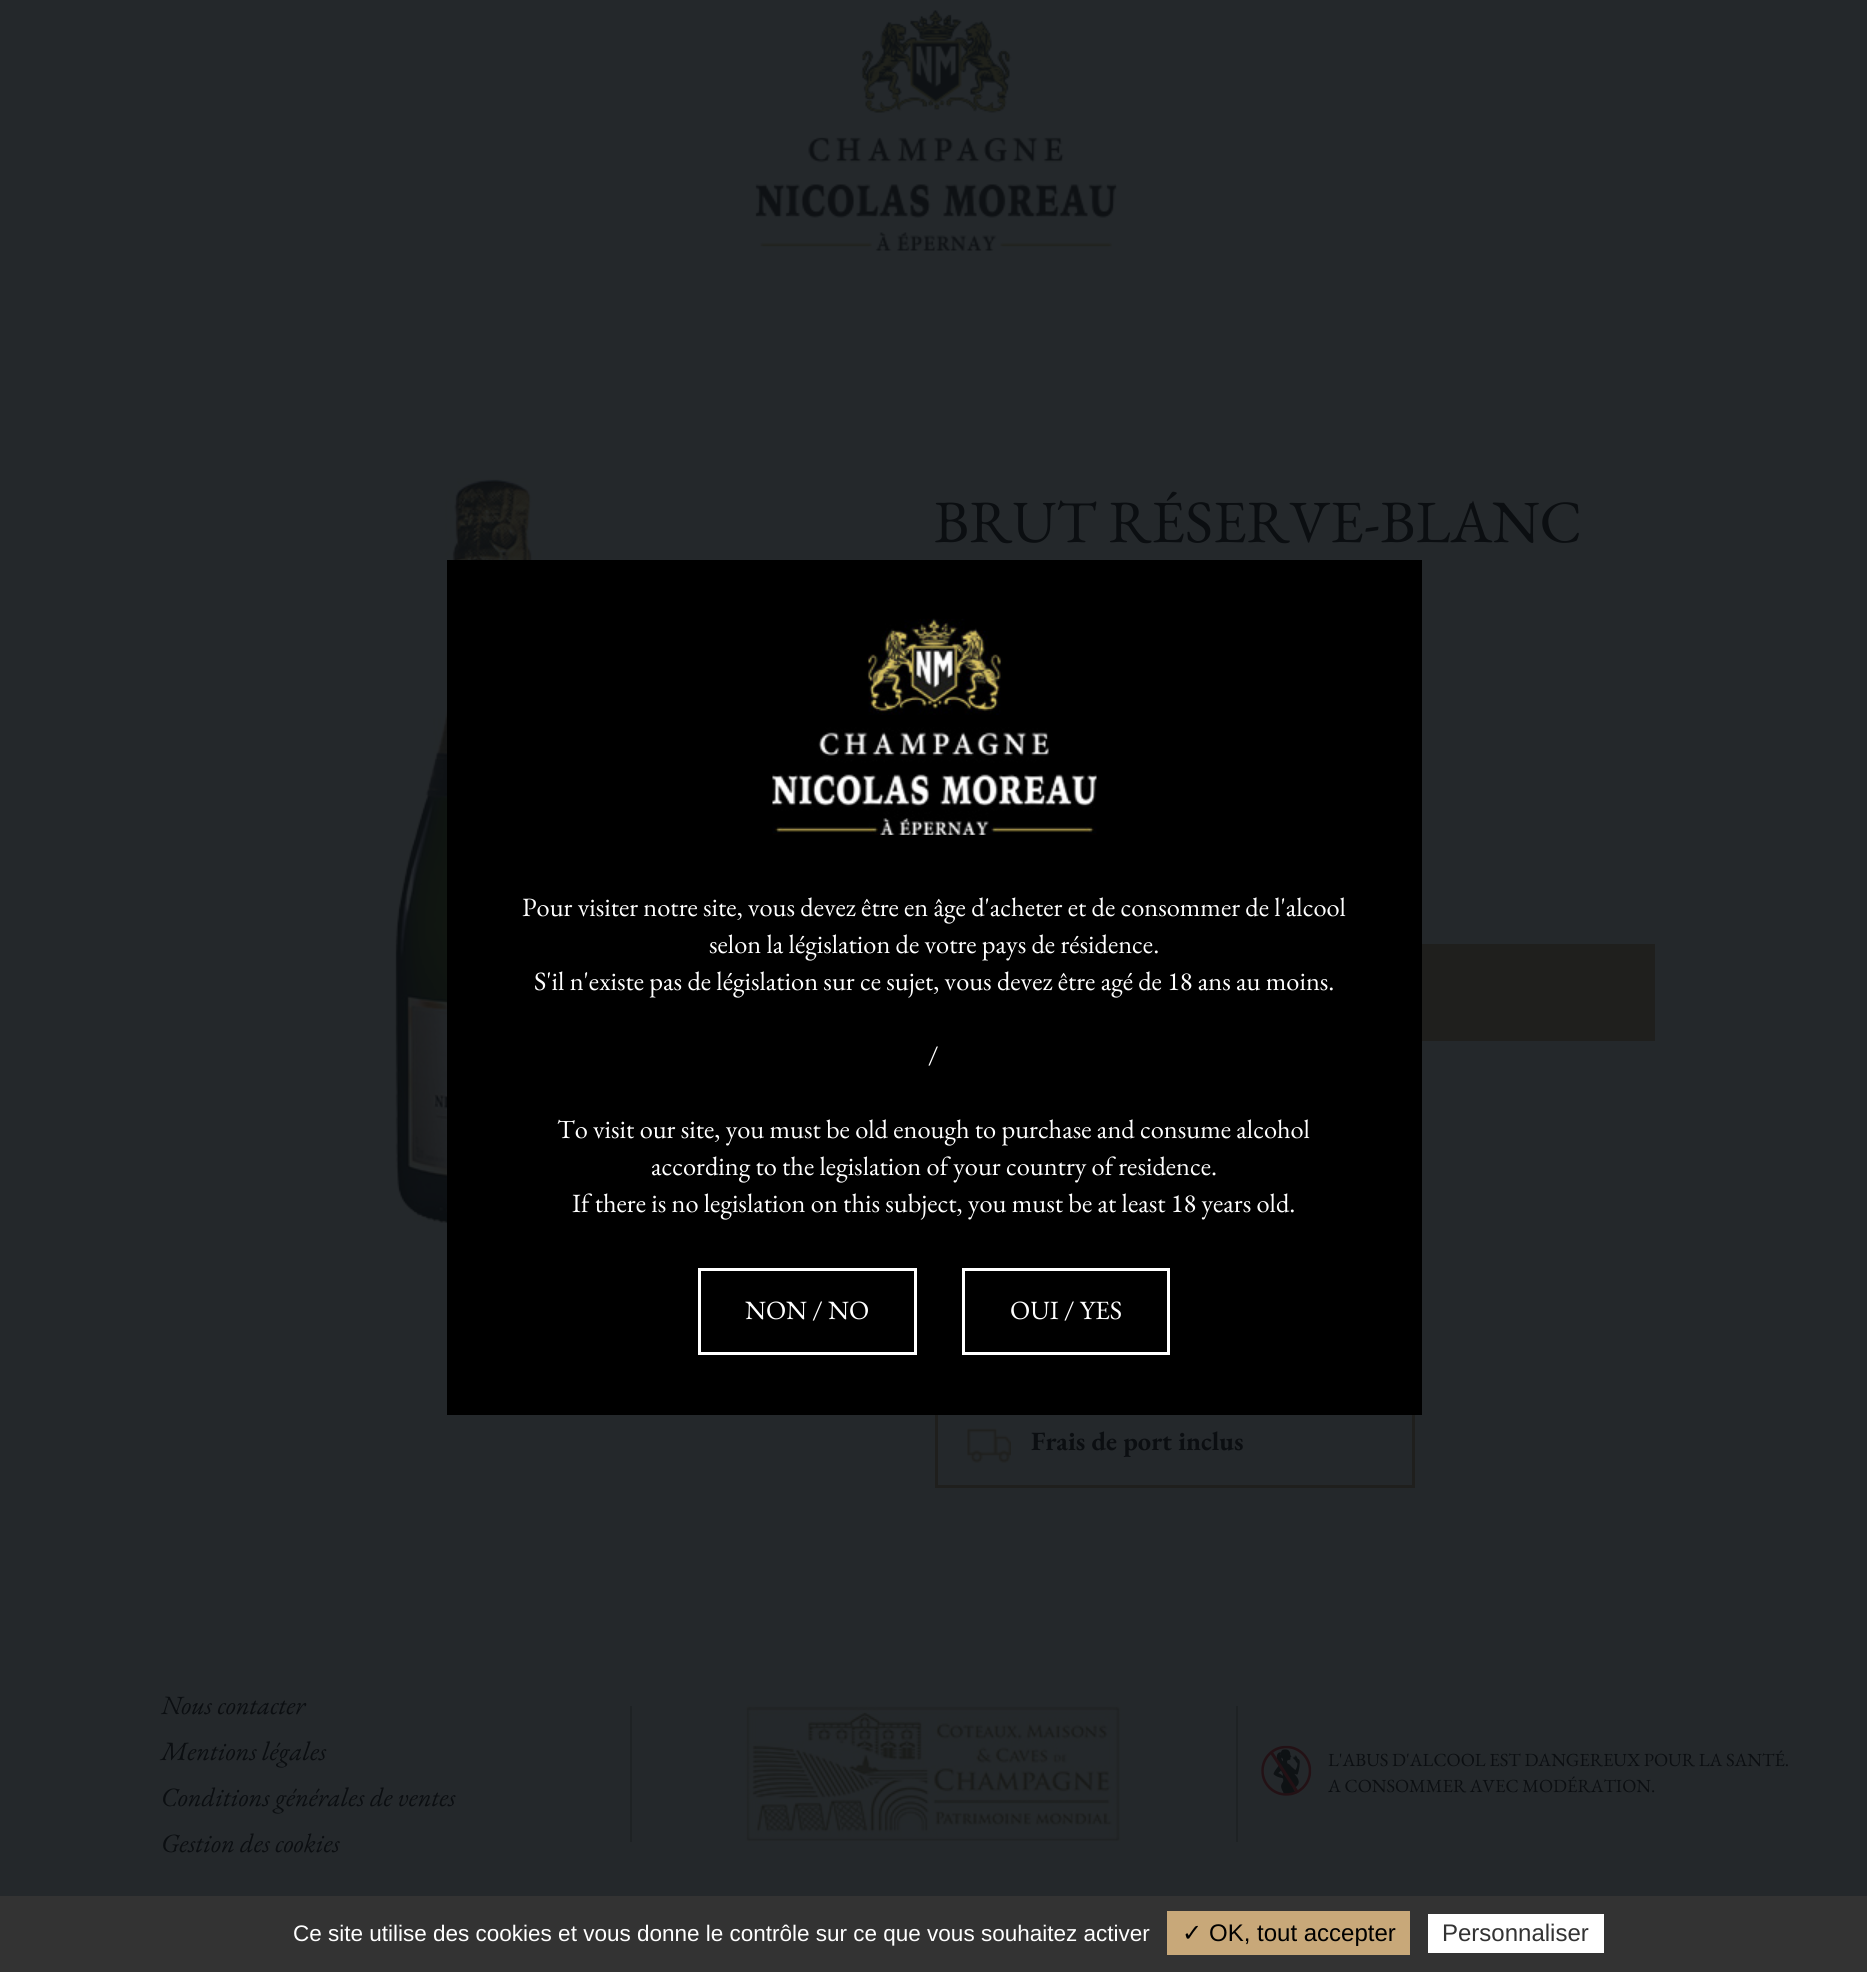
import math
import cairocffi as cairo

surface = cairo.ImageSurface(cairo.FORMAT_RGB24, 1867, 1972)
ctx = cairo.Context(surface)
options = cairo.FontOptions()
options.set_hint_metrics(cairo.HINT_METRICS_OFF)
options.set_hint_style(cairo.HINT_STYLE_NONE)
ctx.set_font_options(options)
ctx.set_miter_limit(4)


def rgb(r, g, b):
    ctx.set_source_rgb(r / 255, g / 255, b / 255)


def face(family, size, italic, bold):
    ctx.select_font_face(family, cairo.FONT_SLANT_ITALIC if italic else cairo.FONT_SLANT_NORMAL, cairo.FONT_WEIGHT_BOLD if bold else cairo.FONT_WEIGHT_NORMAL)
    ctx.set_font_size(size)


def label(x, y, s):
    ctx.move_to(x, y)
    ctx.show_text(s)


def rect(x, y, w, h):
    ctx.rectangle(x, y, w, h)
    ctx.fill()


def image(path, x, y, w, h):
    ctx.save()
    ctx.set_source_surface(cairo.ImageSurface.create_from_png(path), x, y)
    ctx.rectangle(x, y, w, h)
    ctx.fill()
    ctx.restore()


rgb(36, 40, 43)
ctx.paint()
image('image0.png', 755, 10, 362, 241)
image('image1.png', 395, 478, 200, 750)
face('EB Garamond', 60, 0, 0)
rgb(11, 14, 17)
label(934, 542, 'BRUT RÉSERVE-BLANC')
rgb(31, 31, 29)
rect(1422, 944, 233, 97)
ctx.rectangle(936.5, 1399.5, 477, 87)
ctx.set_line_width(3)
ctx.stroke()
image('image2.png', 967, 1428, 44, 35)
face('EB Garamond', 26.4, 0, 1)
rgb(11, 14, 17)
label(1031, 1450, 'Frais de port inclus')
rgb(0, 0, 0)
rect(447, 560, 975, 855)
image('image3.png', 772, 618, 325, 217)
face('EB Garamond', 26.4, 0, 0)
rgb(255, 255, 255)
label(522, 916, 'Pour visiter notre site, vous devez être en âge d\'acheter et de consommer de l\'alcool')
label(709, 953, 'selon la législation de votre pays de résidence.')
label(534, 990, 'S\'il n\'existe pas de législation sur ce sujet, vous devez être agé de 18 ans au moins.')
label(928, 1064, '/')
label(557, 1138, 'To visit our site, you must be old enough to purchase and consume alcohol')
label(651, 1175, 'according to the legislation of your country of residence.')
label(572, 1212, 'If there is no legislation on this subject, you must be at least 18 years old.')
ctx.rectangle(699.5, 1269.5, 216, 84)
ctx.stroke()
label(745, 1319, 'NON / NO')
ctx.rectangle(963.5, 1269.5, 205, 84)
ctx.stroke()
label(1010, 1319, 'OUI / YES')
face('EB Garamond', 26.4, 1, 0)
rgb(11, 14, 17)
label(161, 1714, 'Nous contacter')
label(161, 1760, 'Mentions légales')
label(161, 1806, 'Conditions générales de ventes')
label(161, 1852, 'Gestion des cookies')
rgb(30, 34, 36)
rect(1236, 1706, 2, 136)
rect(630, 1706, 2, 136)
image('image4.png', 745, 1705, 376, 137)
image('image5.png', 1261, 1745, 51, 51)
face('EB Garamond', 18.5, 0, 0)
rgb(11, 14, 17)
label(1328, 1766, 'L\'ABUS D\'ALCOOL EST DANGEREUX POUR LA SANTÉ.')
label(1328, 1792, 'A CONSOMMER AVEC MODÉRATION.')
rgb(51, 51, 51)
rect(0, 1896, 1867, 76)
face('Liberation Sans', 22.5, 0, 0)
rgb(255, 255, 255)
label(293, 1941, 'Ce site utilise des cookies et vous donne le contrôle sur ce que vous souhaitez activer')
rgb(200, 168, 121)
rect(1167, 1911, 243, 44)
face('DejaVu Sans', 24, 0, 0)
rgb(0, 0, 0)
label(1182, 1941, '✓')
face('Liberation Sans', 24, 0, 0)
label(1209, 1941, 'OK, tout accepter')
rgb(255, 255, 255)
rect(1428, 1914, 176, 39)
rgb(51, 51, 51)
label(1442, 1941, 'Personnaliser')
surface.write_to_png('render.png')
